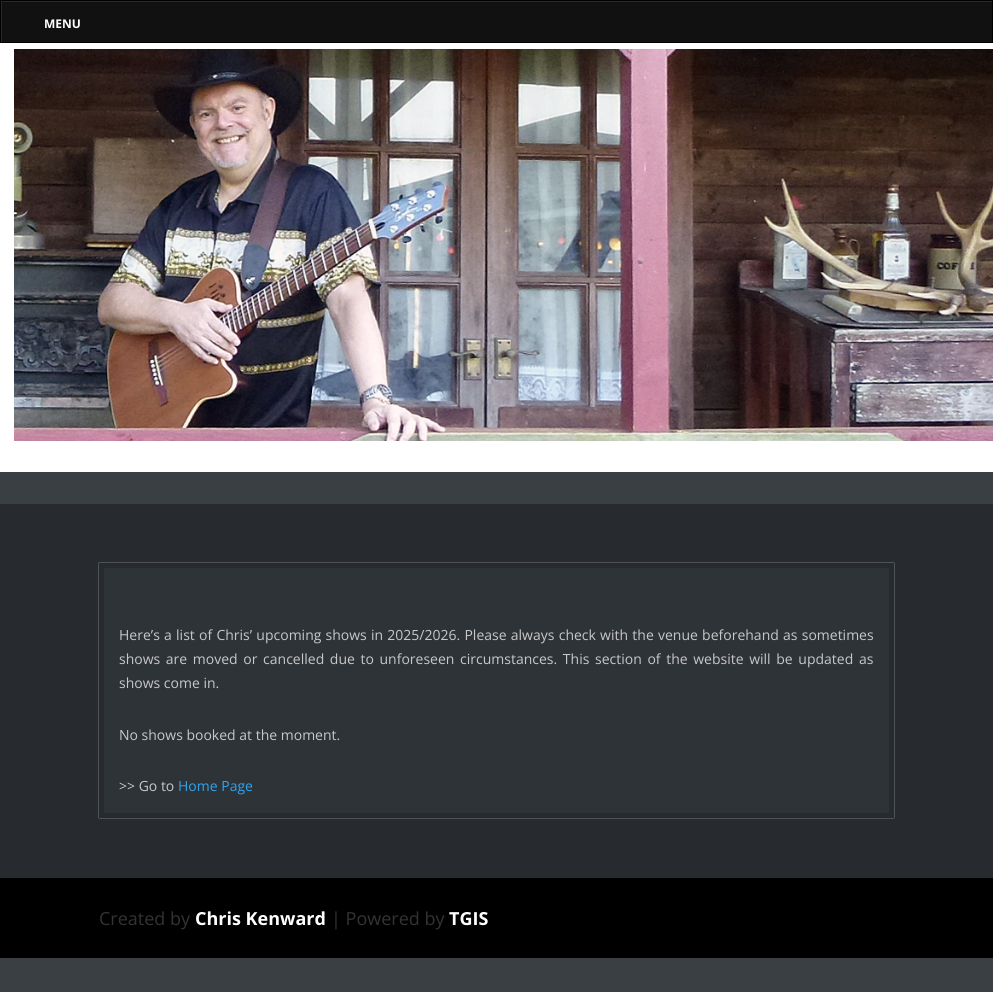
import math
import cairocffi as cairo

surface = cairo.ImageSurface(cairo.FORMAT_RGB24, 993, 992)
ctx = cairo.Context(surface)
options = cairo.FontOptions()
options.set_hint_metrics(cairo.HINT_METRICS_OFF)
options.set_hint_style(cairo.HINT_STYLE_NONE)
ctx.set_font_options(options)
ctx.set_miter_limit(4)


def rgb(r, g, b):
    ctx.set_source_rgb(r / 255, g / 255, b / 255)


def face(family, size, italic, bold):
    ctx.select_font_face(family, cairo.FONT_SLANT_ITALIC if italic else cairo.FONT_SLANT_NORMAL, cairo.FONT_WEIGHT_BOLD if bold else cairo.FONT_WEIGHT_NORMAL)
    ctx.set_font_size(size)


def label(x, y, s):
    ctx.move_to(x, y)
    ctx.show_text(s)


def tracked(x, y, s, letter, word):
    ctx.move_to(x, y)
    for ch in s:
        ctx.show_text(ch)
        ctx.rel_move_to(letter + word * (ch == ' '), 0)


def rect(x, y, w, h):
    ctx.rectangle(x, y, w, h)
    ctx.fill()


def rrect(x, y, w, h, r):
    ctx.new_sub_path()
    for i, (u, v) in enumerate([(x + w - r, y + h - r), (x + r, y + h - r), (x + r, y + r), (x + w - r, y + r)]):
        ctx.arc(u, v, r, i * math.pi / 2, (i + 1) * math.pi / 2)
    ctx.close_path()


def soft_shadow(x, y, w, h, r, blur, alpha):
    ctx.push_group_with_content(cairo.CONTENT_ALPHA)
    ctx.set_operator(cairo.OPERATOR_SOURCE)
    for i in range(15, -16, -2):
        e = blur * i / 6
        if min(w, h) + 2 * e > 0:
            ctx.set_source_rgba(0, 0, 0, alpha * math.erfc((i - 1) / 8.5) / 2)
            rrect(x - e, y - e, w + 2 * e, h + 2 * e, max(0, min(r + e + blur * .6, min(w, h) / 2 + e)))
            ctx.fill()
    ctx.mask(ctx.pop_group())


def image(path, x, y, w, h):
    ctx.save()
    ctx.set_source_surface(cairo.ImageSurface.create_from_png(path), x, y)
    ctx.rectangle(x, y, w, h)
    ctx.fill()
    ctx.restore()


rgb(58, 63, 68)
ctx.paint()
rgb(255, 255, 255)
rect(0, 43, 993, 429)
rgb(17, 17, 17)
rect(2, 2, 990, 40)
ctx.save()
ctx.rectangle(1, 1, 991, 41)
ctx.clip()
rgb(41, 41, 41)
ctx.set_fill_rule(cairo.FILL_RULE_EVEN_ODD)
ctx.new_path()
ctx.move_to(-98, -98)
ctx.line_to(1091, -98)
ctx.line_to(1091, 141)
ctx.line_to(-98, 141)
ctx.close_path()
ctx.move_to(2, 2)
ctx.line_to(993, 2)
ctx.line_to(993, 43)
ctx.line_to(2, 43)
ctx.close_path()
ctx.fill()
ctx.restore()
ctx.rectangle(0.5, 0.5, 992, 42)
rgb(0, 0, 0)
ctx.set_line_width(1)
ctx.stroke()
face('Open Sans', 12, 0, 1)
rgb(255, 255, 255)
label(44, 28, 'MENU')
image('image0.png', 14, 49, 979, 392)
rgb(39, 43, 48)
rect(0, 504, 993, 374)
rgb(200, 200, 200)
soft_shadow(99, 563, 795, 255, 0, 0.5, 1)
rgb(46, 51, 56)
ctx.rectangle(101.5, 565.5, 790, 250)
ctx.fill_preserve()
rgb(39, 43, 48)
ctx.set_line_width(5)
ctx.stroke()
face('Open Sans', 14, 0, 0)
rgb(200, 200, 200)
tracked(119, 640, 'Here’s a list of Chris’ upcoming shows in 2025/2026. Please always check with the venue beforehand as sometimes', 0, 0.6)
tracked(119, 664, 'shows are moved or cancelled due to unforeseen circumstances. This section of the website will be updated as', 0, 2)
label(119, 688, 'shows come in.')
label(119, 740, 'No shows booked at the moment.')
label(119, 791, '>> Go to')
rgb(46, 163, 242)
label(178, 791, 'Home Page')
rgb(0, 0, 0)
rect(0, 878, 993, 80)
face('Open Sans', 18, 0, 0)
rgb(51, 51, 51)
label(99, 925, 'Created by')
face('Open Sans', 18, 0, 1)
rgb(255, 255, 255)
label(195, 925, 'Chris Kenward')
face('Open Sans', 18, 0, 0)
rgb(51, 51, 51)
label(331, 925, '| Powered by')
face('Open Sans', 18, 0, 1)
rgb(255, 255, 255)
label(449, 925, 'TGIS')
surface.write_to_png('render.png')
